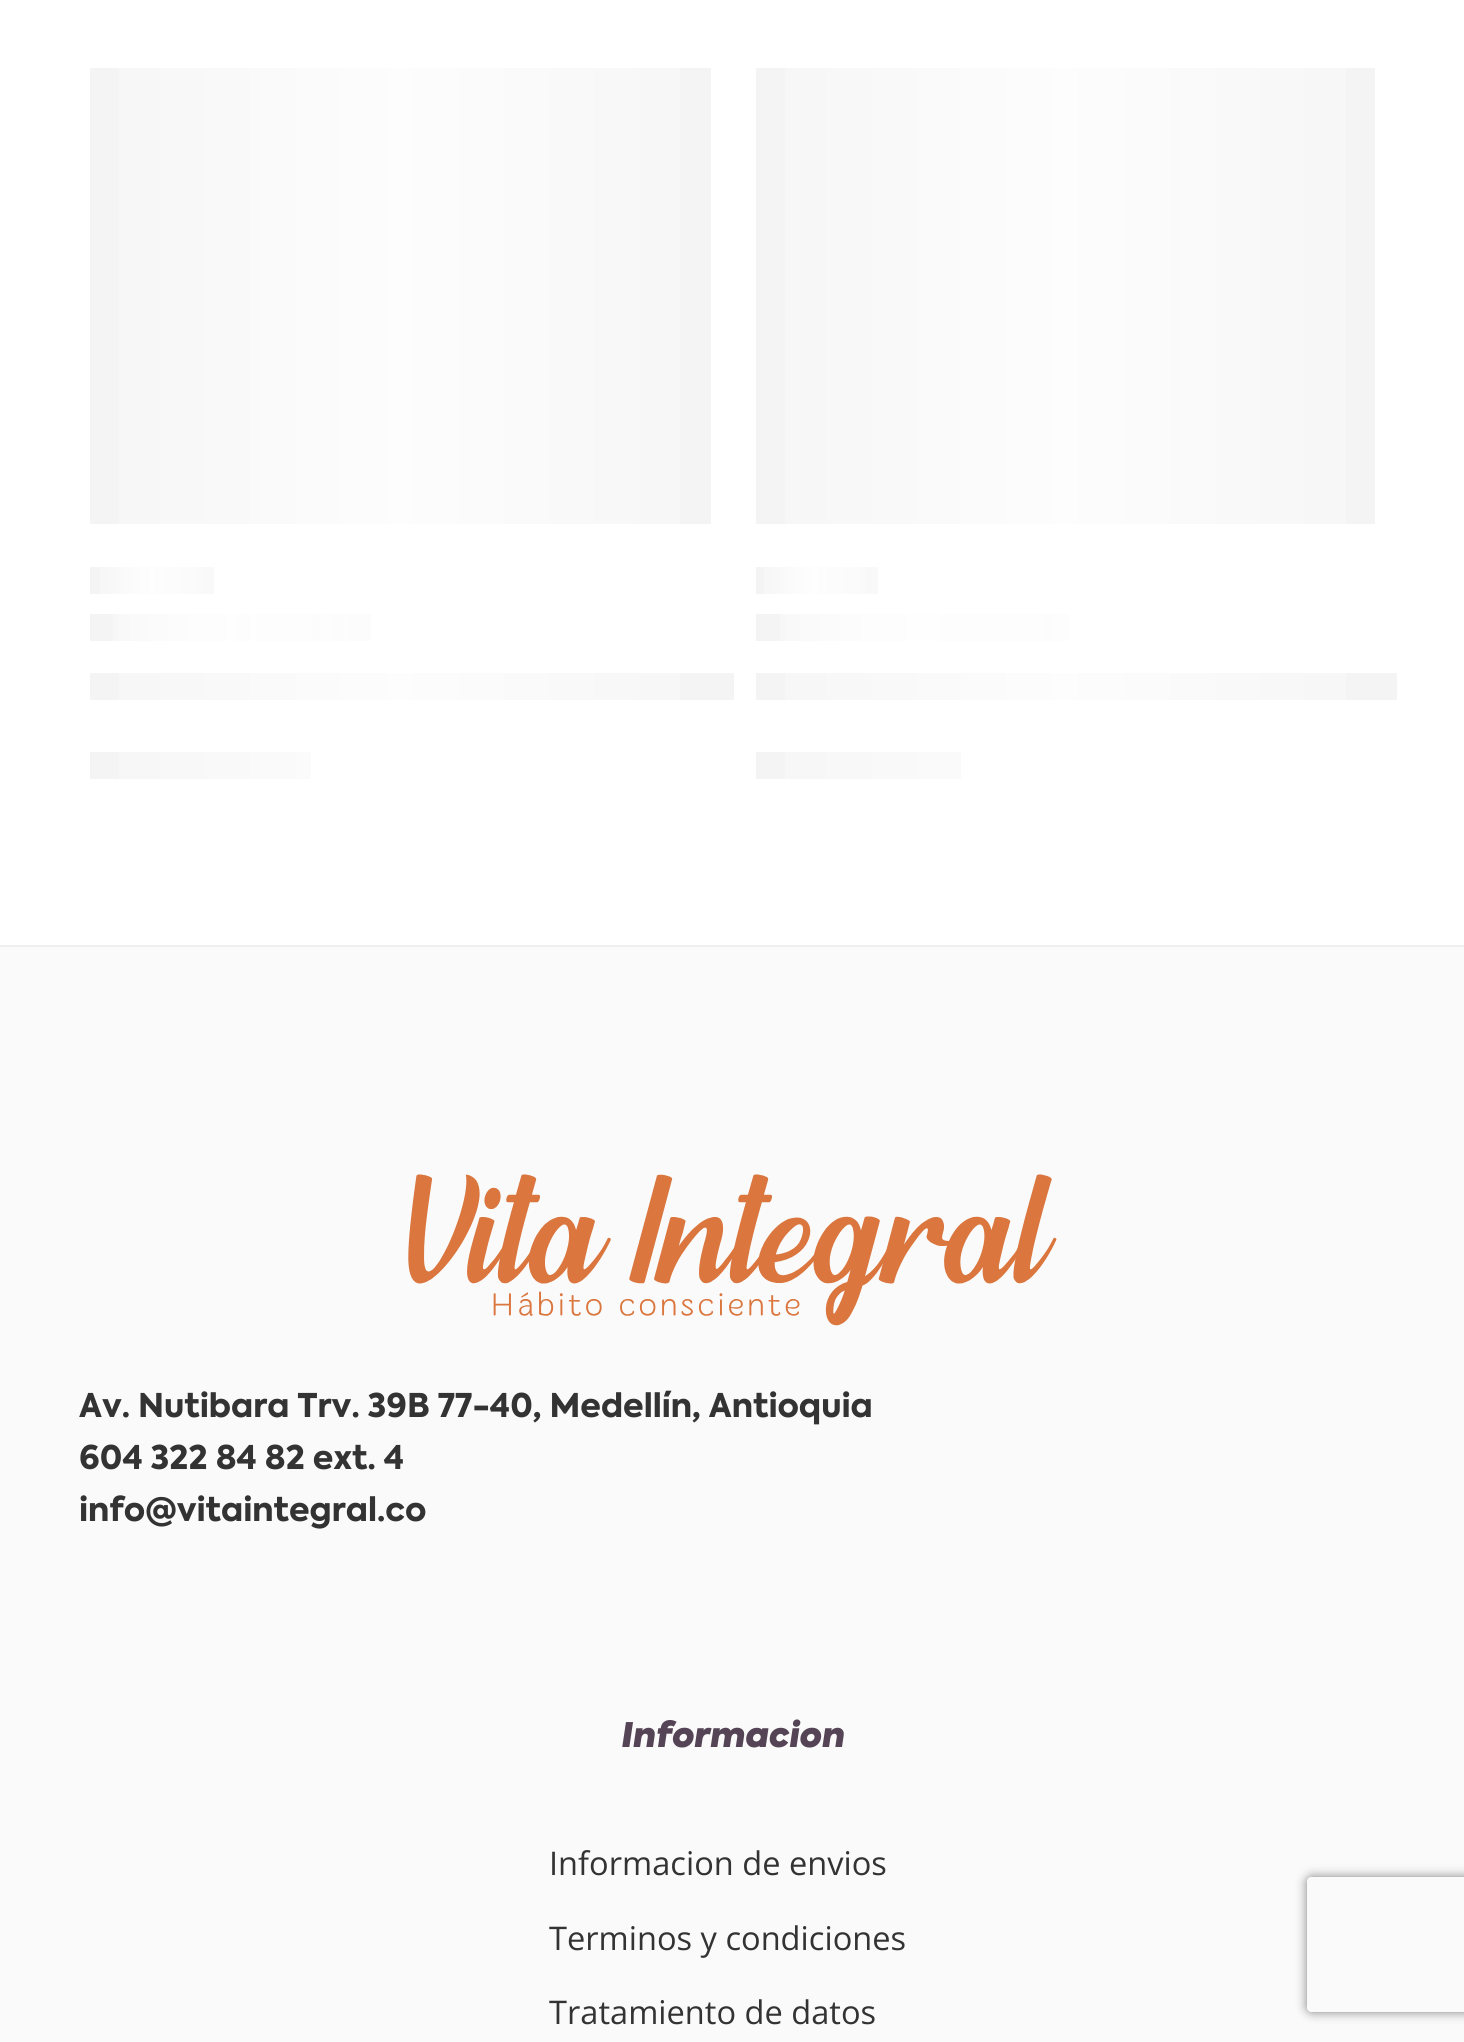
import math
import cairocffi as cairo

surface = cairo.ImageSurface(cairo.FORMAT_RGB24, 1464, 2042)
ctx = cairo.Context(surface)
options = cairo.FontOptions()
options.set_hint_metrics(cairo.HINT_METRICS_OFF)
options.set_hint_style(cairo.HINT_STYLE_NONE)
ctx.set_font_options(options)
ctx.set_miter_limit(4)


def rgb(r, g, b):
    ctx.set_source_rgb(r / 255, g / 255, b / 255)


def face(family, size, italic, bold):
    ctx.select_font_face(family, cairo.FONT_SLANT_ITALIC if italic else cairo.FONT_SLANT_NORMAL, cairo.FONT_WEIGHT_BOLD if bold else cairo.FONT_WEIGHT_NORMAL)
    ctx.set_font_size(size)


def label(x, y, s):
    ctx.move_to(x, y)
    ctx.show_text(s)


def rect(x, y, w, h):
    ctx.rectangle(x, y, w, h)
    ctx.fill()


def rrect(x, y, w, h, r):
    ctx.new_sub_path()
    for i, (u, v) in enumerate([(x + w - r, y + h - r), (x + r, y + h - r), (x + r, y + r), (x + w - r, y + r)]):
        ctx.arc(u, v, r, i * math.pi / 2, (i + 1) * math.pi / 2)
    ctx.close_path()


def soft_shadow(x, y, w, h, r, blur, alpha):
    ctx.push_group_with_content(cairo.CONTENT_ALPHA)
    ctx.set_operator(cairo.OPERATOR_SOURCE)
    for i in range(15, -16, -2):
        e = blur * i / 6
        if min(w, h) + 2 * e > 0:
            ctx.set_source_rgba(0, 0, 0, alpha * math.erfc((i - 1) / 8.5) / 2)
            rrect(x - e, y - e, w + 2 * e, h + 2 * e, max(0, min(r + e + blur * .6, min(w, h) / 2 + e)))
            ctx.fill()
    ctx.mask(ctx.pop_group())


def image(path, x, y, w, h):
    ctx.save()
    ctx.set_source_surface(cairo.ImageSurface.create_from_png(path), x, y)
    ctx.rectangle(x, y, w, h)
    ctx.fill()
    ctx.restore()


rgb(255, 255, 255)
ctx.paint()
rgb(244, 244, 244)
rect(90, 68, 621, 456)
rect(90, 567, 124, 27)
gradient = cairo.LinearGradient(29, 581, 275, 581)
gradient.add_color_stop_rgba(0.2, 1, 1, 1, 0)
gradient.add_color_stop_rgba(0.5, 1, 1, 1, 0.8)
gradient.add_color_stop_rgba(0.8, 1, 1, 1, 0)
ctx.set_source(gradient)
rect(100, 567, 104, 27)
rgb(244, 244, 244)
rect(90, 614, 281, 27)
gradient = cairo.LinearGradient(-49, 628, 511, 628)
gradient.add_color_stop_rgba(0.2, 1, 1, 1, 0)
gradient.add_color_stop_rgba(0.5, 1, 1, 1, 0.8)
gradient.add_color_stop_rgba(0.8, 1, 1, 1, 0)
ctx.set_source(gradient)
rect(113, 614, 236, 27)
rgb(244, 244, 244)
rect(90, 673, 644, 27)
rect(90, 752, 221, 27)
gradient = cairo.LinearGradient(-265, 460, 1064, 460)
gradient.add_color_stop_rgba(0.2, 1, 1, 1, 0)
gradient.add_color_stop_rgba(0.5, 1, 1, 1, 0.8)
gradient.add_color_stop_rgba(0.8, 1, 1, 1, 0)
ctx.set_source(gradient)
rect(119, 68, 561, 711)
rgb(244, 244, 244)
rect(756, 68, 619, 456)
rect(756, 567, 122, 27)
gradient = cairo.LinearGradient(693, 581, 938, 581)
gradient.add_color_stop_rgba(0.2, 1, 1, 1, 0)
gradient.add_color_stop_rgba(0.5, 1, 1, 1, 0.8)
gradient.add_color_stop_rgba(0.8, 1, 1, 1, 0)
ctx.set_source(gradient)
rect(764, 567, 103, 27)
rgb(244, 244, 244)
rect(756, 614, 313, 27)
gradient = cairo.LinearGradient(599, 628, 1224, 628)
gradient.add_color_stop_rgba(0.2, 1, 1, 1, 0)
gradient.add_color_stop_rgba(0.5, 1, 1, 1, 0.8)
gradient.add_color_stop_rgba(0.8, 1, 1, 1, 0)
ctx.set_source(gradient)
rect(780, 614, 263, 27)
rgb(244, 244, 244)
rect(756, 673, 641, 27)
rect(756, 752, 205, 27)
gradient = cairo.LinearGradient(401, 460, 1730, 460)
gradient.add_color_stop_rgba(0.2, 1, 1, 1, 0)
gradient.add_color_stop_rgba(0.5, 1, 1, 1, 0.8)
gradient.add_color_stop_rgba(0.8, 1, 1, 1, 0)
ctx.set_source(gradient)
rect(785, 68, 561, 711)
rgb(250, 250, 250)
rect(0, 947, 1464, 1095)
rgb(239, 239, 239)
rect(0, 945, 1464, 2)
image('image0.png', 408, 1174, 649, 152)
face('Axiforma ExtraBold', 32.6, 0, 0)
rgb(51, 51, 51)
label(79, 1417, 'Av. Nutibara Trv. 39B 77-40, Medellín, Antioquia')
label(79, 1469, '604 322 84 82 ext. 4')
label(79, 1521, 'info@vitaintegral.co')
face('Axiforma Black', 33.75, 0, 0)
rgb(85, 68, 85)
label(621, 1747, 'Informacion')
face('Open Sans', 32.6, 0, 0)
rgb(51, 51, 51)
label(549, 1875, 'Informacion de envios')
label(549, 1950, 'Terminos y condiciones')
label(549, 2024, 'Tratamiento de datos')
ctx.save()
ctx.set_fill_rule(cairo.FILL_RULE_EVEN_ODD)
ctx.new_path()
ctx.move_to(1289, 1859)
ctx.line_to(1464, 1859)
ctx.line_to(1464, 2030)
ctx.line_to(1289, 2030)
ctx.close_path()
ctx.move_to(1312, 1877)
ctx.line_to(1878, 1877)
ctx.curve_to(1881, 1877, 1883, 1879, 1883, 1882)
ctx.line_to(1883, 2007)
ctx.curve_to(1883, 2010, 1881, 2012, 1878, 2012)
ctx.line_to(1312, 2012)
ctx.curve_to(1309, 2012, 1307, 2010, 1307, 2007)
ctx.line_to(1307, 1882)
ctx.curve_to(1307, 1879, 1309, 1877, 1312, 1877)
ctx.close_path()
ctx.clip()
rgb(128, 128, 128)
soft_shadow(1307, 1877, 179, 135, 5, 5.5, 1)
ctx.restore()
surface.write_to_png('render.png')
